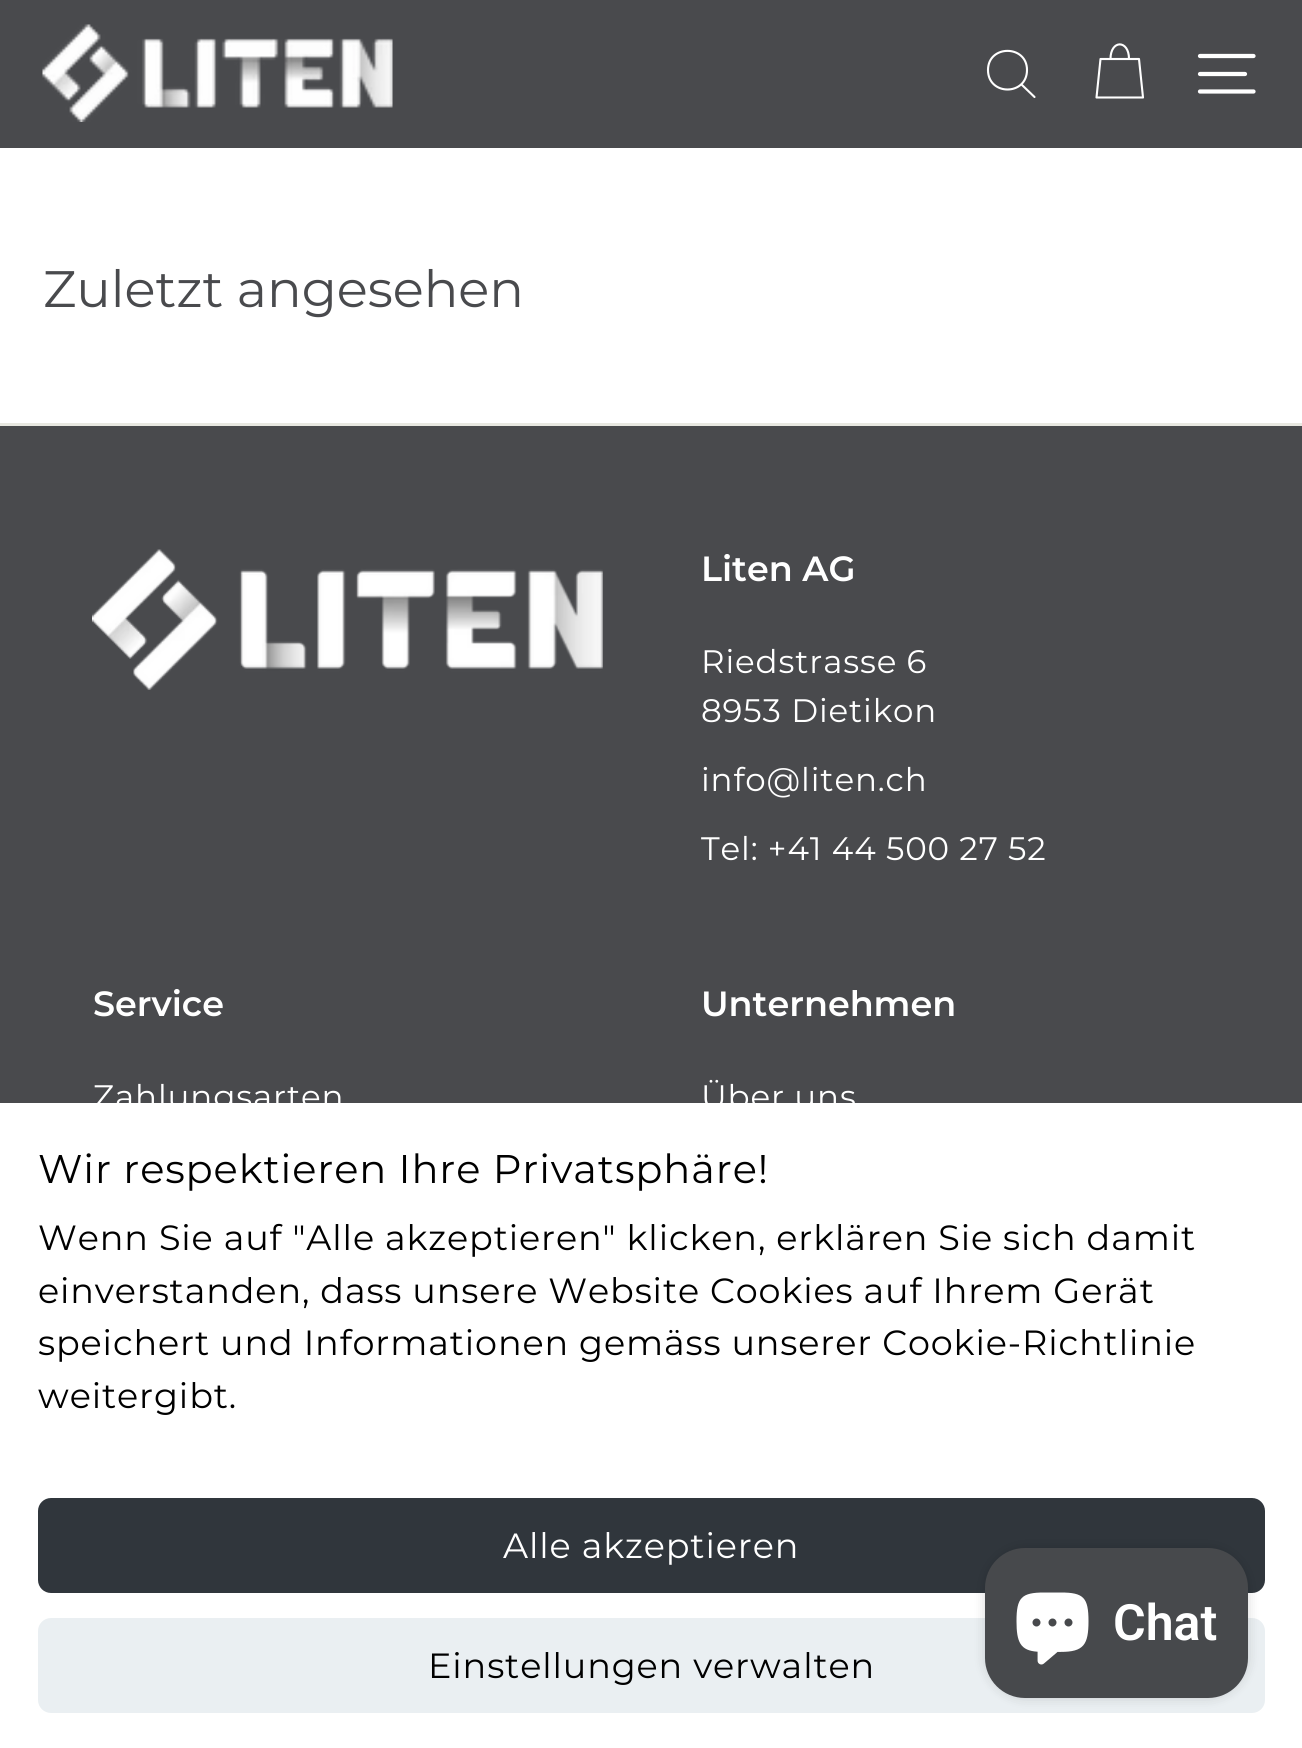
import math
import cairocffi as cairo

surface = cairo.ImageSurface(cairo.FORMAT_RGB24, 1302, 1748)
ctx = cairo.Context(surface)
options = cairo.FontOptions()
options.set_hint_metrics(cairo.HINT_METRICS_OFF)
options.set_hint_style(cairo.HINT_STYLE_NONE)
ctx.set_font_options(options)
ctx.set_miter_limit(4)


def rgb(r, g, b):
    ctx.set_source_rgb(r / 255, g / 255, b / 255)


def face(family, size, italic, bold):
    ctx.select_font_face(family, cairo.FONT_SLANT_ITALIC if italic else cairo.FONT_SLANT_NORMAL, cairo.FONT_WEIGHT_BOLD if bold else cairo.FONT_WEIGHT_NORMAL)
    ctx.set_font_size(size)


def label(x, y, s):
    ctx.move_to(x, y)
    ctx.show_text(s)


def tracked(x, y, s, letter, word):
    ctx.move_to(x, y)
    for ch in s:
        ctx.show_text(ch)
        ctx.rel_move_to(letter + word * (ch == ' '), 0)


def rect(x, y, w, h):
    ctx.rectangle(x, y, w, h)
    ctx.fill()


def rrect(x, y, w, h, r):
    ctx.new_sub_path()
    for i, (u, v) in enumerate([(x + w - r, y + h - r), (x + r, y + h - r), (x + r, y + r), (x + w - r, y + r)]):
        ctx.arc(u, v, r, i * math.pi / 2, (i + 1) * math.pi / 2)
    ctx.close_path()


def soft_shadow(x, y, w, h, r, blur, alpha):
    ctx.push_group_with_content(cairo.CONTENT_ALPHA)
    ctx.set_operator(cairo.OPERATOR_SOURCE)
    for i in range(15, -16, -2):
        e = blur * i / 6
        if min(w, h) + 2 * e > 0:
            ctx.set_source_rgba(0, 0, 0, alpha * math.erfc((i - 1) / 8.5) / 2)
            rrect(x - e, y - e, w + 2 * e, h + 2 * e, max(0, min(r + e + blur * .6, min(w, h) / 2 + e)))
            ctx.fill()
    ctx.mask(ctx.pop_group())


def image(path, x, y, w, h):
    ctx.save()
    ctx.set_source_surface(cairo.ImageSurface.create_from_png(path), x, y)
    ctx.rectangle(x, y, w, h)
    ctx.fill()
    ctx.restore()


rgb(255, 255, 255)
ctx.paint()
rgb(73, 74, 77)
rect(0, 0, 1302, 148)
image('image0.png', 42, 24, 351, 98)
ctx.new_path()
ctx.move_to(1027, 70)
ctx.curve_to(1027, 96, 988, 96, 988, 70)
ctx.curve_to(988, 44.5, 1027, 44.5, 1027, 70)
ctx.close_path()
ctx.move_to(1034.5, 97)
ctx.line_to(1021.5, 84.5)
rgb(255, 255, 255)
ctx.set_line_width(2.1)
ctx.set_line_cap(cairo.LINE_CAP_ROUND)
ctx.set_line_join(cairo.LINE_JOIN_ROUND)
ctx.stroke()
ctx.new_path()
ctx.move_to(1110.5, 59)
ctx.curve_to(1110.5, 39.5, 1129, 39.5, 1129, 59)
ctx.move_to(1100.5, 59)
ctx.line_to(1139, 59)
ctx.line_to(1143, 97.5)
ctx.line_to(1096.5, 97.5)
ctx.close_path()
ctx.stroke()
ctx.new_path()
ctx.move_to(1200, 56)
ctx.line_to(1253.5, 56)
ctx.move_to(1200, 74)
ctx.line_to(1245, 74)
ctx.move_to(1200, 91.5)
ctx.line_to(1253.5, 91.5)
ctx.set_line_width(4.2)
ctx.stroke()
face('Montserrat', 51.25, 0, 0)
rgb(73, 74, 77)
label(43, 307, 'Zuletzt angesehen')
rect(0, 426, 1302, 677)
rgb(232, 232, 225)
rect(0, 423, 1302, 3)
image('image1.png', 92, 549, 511, 141)
face('Montserrat SemiBold', 35, 0, 0)
rgb(255, 255, 255)
label(701, 581, 'Liten AG')
face('Montserrat', 32.5, 0, 0)
tracked(701, 673, 'Riedstrasse 6', 0.88, 0)
tracked(701, 722, '8953 Dietikon', 0.88, 0)
tracked(701, 791, 'info@liten.ch', 0.88, 0)
tracked(701, 860, 'Tel: +41 44 500 27 52', 0.88, 0)
face('Montserrat SemiBold', 35, 0, 0)
label(93, 1016, 'Service')
face('Montserrat', 32.5, 0, 0)
tracked(93, 1108, 'Zahlungsarten', 0.88, 0)
face('Montserrat SemiBold', 35, 0, 0)
label(701, 1016, 'Unternehmen')
face('Montserrat', 32.5, 0, 0)
tracked(701, 1108, 'Über uns', 0.88, 0)
face('Montserrat', 40, 0, 0)
rgb(0, 0, 0)
tracked(38, 1183, 'Wir respektieren Ihre Privatsphäre!', 0.88, 0)
face('Montserrat', 35, 0, 0)
tracked(38, 1250, 'Wenn Sie auf "Alle akzeptieren" klicken, erklären Sie sich damit', 0.88, 0)
tracked(38, 1303, 'einverstanden, dass unsere Website Cookies auf Ihrem Gerät', 0.88, 0)
tracked(38, 1355, 'speichert und Informationen gemäss unserer Cookie-Richtlinie', 0.88, 0)
tracked(38, 1408, 'weitergibt.', 0.88, 0)
rgb(48, 54, 60)
rrect(38, 1498, 1227, 95, 13)
ctx.fill()
rgb(255, 255, 255)
tracked(503, 1558, 'Alle akzeptieren', 0.88, 0)
rgb(234, 239, 242)
rrect(38, 1618, 1227, 95, 13)
ctx.fill()
rgb(0, 0, 0)
tracked(428, 1678, 'Einstellungen verwalten', 0.88, 0)
rgb(0, 0, 0)
soft_shadow(985, 1548, 263, 150, 40, 6, 0.15)
rgb(71, 73, 76)
rrect(985, 1548, 263, 150, 40)
ctx.fill()
image('image2.png', 1016, 1592, 73, 73)
face('Roboto SemiBold', 50, 0, 0)
rgb(255, 255, 255)
label(1113, 1640, 'Chat')
surface.write_to_png('render.png')
